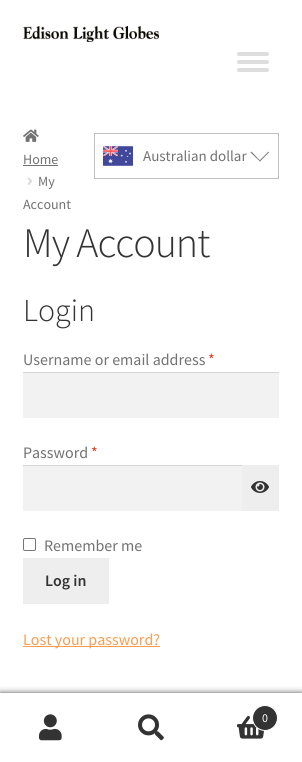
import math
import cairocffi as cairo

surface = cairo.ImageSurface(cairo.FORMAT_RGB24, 302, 762)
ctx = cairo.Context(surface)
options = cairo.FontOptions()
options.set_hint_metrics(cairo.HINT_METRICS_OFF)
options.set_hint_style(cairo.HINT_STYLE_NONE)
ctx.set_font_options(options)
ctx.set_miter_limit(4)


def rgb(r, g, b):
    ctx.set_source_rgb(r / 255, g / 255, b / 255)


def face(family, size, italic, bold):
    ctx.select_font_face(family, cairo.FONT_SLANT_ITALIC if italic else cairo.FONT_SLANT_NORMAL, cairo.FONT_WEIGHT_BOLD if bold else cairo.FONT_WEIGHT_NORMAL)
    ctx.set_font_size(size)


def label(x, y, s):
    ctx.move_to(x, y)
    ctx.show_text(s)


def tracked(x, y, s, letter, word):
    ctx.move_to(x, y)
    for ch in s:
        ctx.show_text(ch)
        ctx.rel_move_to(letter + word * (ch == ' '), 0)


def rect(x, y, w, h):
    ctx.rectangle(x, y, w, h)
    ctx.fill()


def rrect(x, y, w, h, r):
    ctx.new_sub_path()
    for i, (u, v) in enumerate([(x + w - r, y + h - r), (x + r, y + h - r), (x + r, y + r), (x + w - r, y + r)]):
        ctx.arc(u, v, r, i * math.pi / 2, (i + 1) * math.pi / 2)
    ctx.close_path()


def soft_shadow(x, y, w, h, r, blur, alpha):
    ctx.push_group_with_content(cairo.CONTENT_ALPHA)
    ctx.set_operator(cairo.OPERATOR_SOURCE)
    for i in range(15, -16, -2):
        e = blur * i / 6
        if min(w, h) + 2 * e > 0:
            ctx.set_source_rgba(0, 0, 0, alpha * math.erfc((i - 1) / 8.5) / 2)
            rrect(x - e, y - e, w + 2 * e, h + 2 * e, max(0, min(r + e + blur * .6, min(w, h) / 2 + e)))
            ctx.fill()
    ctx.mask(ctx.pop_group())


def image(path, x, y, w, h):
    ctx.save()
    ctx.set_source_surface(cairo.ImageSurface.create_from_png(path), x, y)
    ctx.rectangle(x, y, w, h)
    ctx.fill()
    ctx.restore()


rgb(255, 255, 255)
ctx.paint()
image('image0.png', 23, 26, 136, 16)
rgb(221, 221, 221)
rrect(237, 52, 32, 4, 2)
ctx.fill()
rrect(237, 60, 32, 4, 2)
ctx.fill()
rrect(237, 68, 32, 4, 2)
ctx.fill()
image('image1.png', 23, 129, 16, 13)
face('Source Sans Pro', 14, 0, 0)
rgb(114, 114, 114)
label(23, 164, 'Home')
rect(23, 165, 35, 1)
image('image2.png', 27, 177, 6, 8)
label(38, 186, 'My')
label(23, 209, 'Account')
ctx.rectangle(94.5, 133.5, 184, 45)
rgb(192, 192, 192)
ctx.set_line_width(1)
ctx.stroke()
image('image3.png', 103, 146, 30, 20)
face('Source Sans Pro', 15, 0, 0)
rgb(114, 114, 114)
label(143, 161, 'Australian dollar')
rgb(128, 128, 128)
ctx.new_path()
ctx.move_to(268.5, 151.5)
ctx.line_to(269, 152.5)
ctx.line_to(260, 161.5)
ctx.line_to(259, 161)
ctx.close_path()
ctx.fill()
ctx.new_path()
ctx.move_to(251.5, 151.5)
ctx.line_to(260.5, 161)
ctx.line_to(260, 161.5)
ctx.line_to(250.5, 152.5)
ctx.close_path()
ctx.fill()
face('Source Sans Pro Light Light', 42, 0, 0)
rgb(51, 51, 51)
tracked(23, 257, 'My Account', -1, 0)
face('Source Sans Pro Light Light', 32, 0, 0)
label(23, 321, 'Login')
face('Source Sans Pro', 16, 0, 0)
rgb(114, 114, 114)
label(23, 365, 'Username or email address')
rgb(226, 64, 28)
label(208, 365, '*')
rgb(242, 242, 242)
rect(23, 373, 256, 45)
rgb(212, 212, 212)
rect(23, 372, 256, 1)
rgb(114, 114, 114)
label(23, 458, 'Password')
rgb(226, 64, 28)
label(91, 458, '*')
rgb(242, 242, 242)
rect(23, 466, 219, 45)
rgb(212, 212, 212)
rect(23, 465, 219, 1)
rgb(238, 238, 238)
rect(242, 465, 37, 46)
image('image4.png', 251, 481, 18, 12)
rrect(23.5, 538.5, 12, 12, 1.5)
rgb(118, 118, 118)
ctx.stroke()
rgb(114, 114, 114)
label(44, 551, 'Remember me')
rgb(238, 238, 238)
rect(23, 558, 86, 46)
face('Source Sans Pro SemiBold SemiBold', 16, 0, 0)
rgb(51, 51, 51)
label(45, 586, 'Log in')
rgb(249, 157, 82)
rect(23, 646, 137, 1)
face('Source Sans Pro', 16, 0, 0)
label(23, 645, 'Lost your password?')
rgb(0, 0, 0)
soft_shadow(0, 693, 302, 69, 0, 3, 0.7)
rgb(255, 255, 255)
rect(0, 693, 302, 1)
rect(0, 694, 302, 68)
image('image5.png', 39, 714, 23, 27)
image('image6.png', 138, 714, 26, 27)
image('image7.png', 237, 716, 28, 23)
rgb(51, 51, 51)
ctx.arc(265, 718, 12.5, 0, 2 * math.pi)
ctx.fill_preserve()
rgb(255, 255, 255)
ctx.stroke()
face('Source Sans Pro', 12, 0, 0)
label(262, 722, '0')
surface.write_to_png('render.png')
